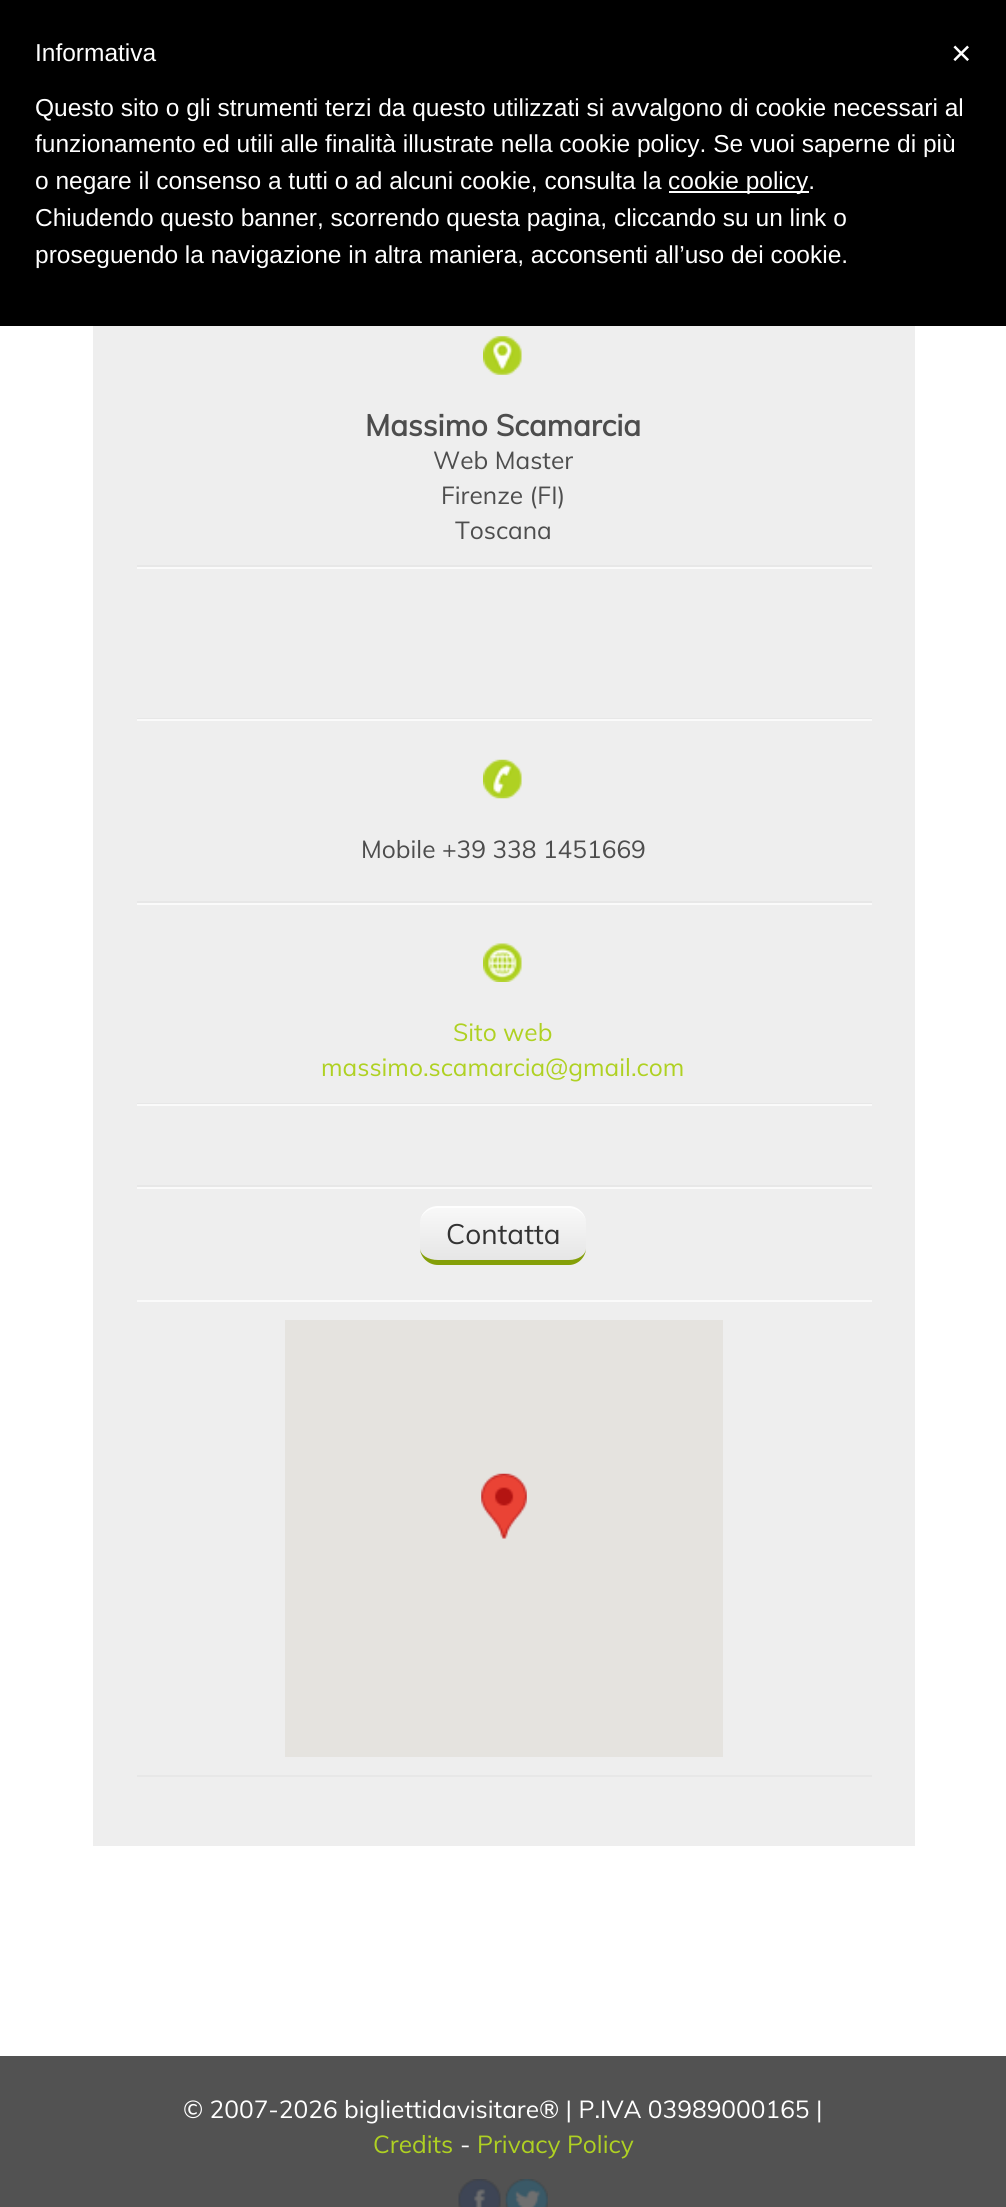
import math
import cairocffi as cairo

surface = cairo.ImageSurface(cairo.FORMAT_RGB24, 1006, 2207)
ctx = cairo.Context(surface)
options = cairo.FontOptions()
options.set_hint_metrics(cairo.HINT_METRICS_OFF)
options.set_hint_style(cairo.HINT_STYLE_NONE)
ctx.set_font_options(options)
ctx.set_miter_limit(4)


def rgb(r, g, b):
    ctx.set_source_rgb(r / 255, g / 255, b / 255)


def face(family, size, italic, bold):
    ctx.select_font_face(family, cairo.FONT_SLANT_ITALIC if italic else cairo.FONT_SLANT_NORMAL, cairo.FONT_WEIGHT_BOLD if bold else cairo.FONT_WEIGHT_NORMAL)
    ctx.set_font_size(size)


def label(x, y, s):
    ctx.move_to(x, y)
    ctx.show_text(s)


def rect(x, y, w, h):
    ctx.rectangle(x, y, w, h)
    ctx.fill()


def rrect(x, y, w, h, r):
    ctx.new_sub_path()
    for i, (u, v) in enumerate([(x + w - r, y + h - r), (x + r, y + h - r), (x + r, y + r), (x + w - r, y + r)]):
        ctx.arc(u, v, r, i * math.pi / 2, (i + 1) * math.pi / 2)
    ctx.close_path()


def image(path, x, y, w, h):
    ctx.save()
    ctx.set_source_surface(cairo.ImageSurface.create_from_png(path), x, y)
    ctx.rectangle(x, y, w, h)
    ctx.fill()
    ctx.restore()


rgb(255, 255, 255)
ctx.paint()
rgb(0, 0, 0)
rect(0, 0, 1006, 326)
face('Liberation Sans', 24.5, 0, 0)
rgb(255, 255, 255)
label(35, 61, 'Informativa')
label(35, 116, 'Questo sito o gli strumenti terzi da questo utilizzati si avvalgono di cookie necessari al')
label(35, 152, 'funzionamento ed utili alle finalità illustrate nella cookie policy. Se vuoi saperne di più')
label(35, 189, 'o negare il consenso a tutti o ad alcuni cookie, consulta la')
rect(669, 191, 140, 2)
label(668, 189, 'cookie policy.')
label(35, 226, 'Chiudendo questo banner, scorrendo questa pagina, cliccando su un link o')
label(35, 263, 'proseguendo la navigazione in altra maniera, acconsenti all’uso dei cookie.')
face('Liberation Sans', 35, 0, 0)
label(951, 65, '×')
rgb(238, 238, 238)
rect(93, 326, 822, 1520)
rgb(231, 231, 231)
rect(137, 565, 735, 2)
image('image0.png', 483, 336, 39, 39)
face('Muli', 29.75, 0, 1)
rgb(77, 77, 77)
label(365, 436, 'Massimo Scamarcia')
face('Muli', 24.5, 0, 0)
label(433, 469, 'Web Master')
label(441, 504, 'Firenze (FI)')
label(455, 539, 'Toscana')
rgb(250, 250, 250)
rect(137, 567, 735, 2)
rgb(231, 231, 231)
rect(137, 718, 735, 1)
rgb(250, 250, 250)
rect(137, 719, 735, 2)
rgb(231, 231, 231)
rect(137, 901, 735, 2)
image('image1.png', 483, 759, 39, 40)
rgb(77, 77, 77)
label(361, 858, 'Mobile +39 338 1451669')
rgb(250, 250, 250)
rect(137, 903, 735, 2)
rgb(231, 231, 231)
rect(137, 1103, 735, 1)
image('image2.png', 483, 943, 39, 39)
rgb(175, 209, 34)
label(453, 1041, 'Sito web')
label(321, 1076, 'massimo.scamarcia@gmail.com')
rgb(250, 250, 250)
rect(137, 1104, 735, 2)
rgb(231, 231, 231)
rect(137, 1185, 735, 2)
rgb(250, 250, 250)
rect(137, 1187, 735, 2)
ctx.save()
rrect(420, 1206, 166, 59, 18)
ctx.clip()
gradient = cairo.LinearGradient(503, 1208, 503, 1260)
gradient.add_color_stop_rgba(0, 0.973, 0.973, 0.973, 1)
gradient.add_color_stop_rgba(1, 0.902, 0.902, 0.902, 1)
ctx.set_source(gradient)
rect(420, 1208, 166, 52)
ctx.restore()
rgb(254, 254, 254)
ctx.new_path()
ctx.move_to(438, 1206)
ctx.curve_to(428, 1206, 420, 1214, 420, 1223)
ctx.curve_to(420, 1215, 428, 1208, 438, 1208)
ctx.line_to(569, 1208)
ctx.curve_to(578, 1208, 586, 1215, 586, 1223)
ctx.curve_to(586, 1214, 578, 1206, 569, 1206)
ctx.close_path()
ctx.fill()
rgb(132, 159, 8)
ctx.new_path()
ctx.move_to(569, 1265)
ctx.curve_to(578, 1265, 586, 1257, 586, 1248)
ctx.curve_to(586, 1255, 578, 1260, 569, 1260)
ctx.line_to(438, 1260)
ctx.curve_to(428, 1260, 420, 1255, 420, 1248)
ctx.curve_to(420, 1257, 428, 1265, 438, 1265)
ctx.close_path()
ctx.fill()
face('Muli', 28, 0, 0)
rgb(51, 51, 51)
label(446, 1244, 'Contatta')
rgb(250, 250, 250)
rect(137, 1300, 735, 2)
rgb(231, 231, 231)
rect(137, 1775, 735, 2)
rgb(229, 227, 223)
rect(285, 1320, 438, 437)
image('image3.png', 481, 1473, 46, 66)
rgb(82, 82, 82)
rect(0, 2056, 1006, 151)
face('Muli', 24.5, 0, 0)
rgb(255, 255, 255)
label(183, 2118, '© 2007-2026 bigliettidavisitare® | P.IVA 03989000165 |')
rgb(175, 209, 34)
label(373, 2153, 'Credits')
rgb(255, 255, 255)
label(460, 2153, '-')
rgb(175, 209, 34)
label(477, 2153, 'Privacy Policy')
image('image4.png', 458, 2179, 43, 28)
image('image5.png', 505, 2179, 43, 28)
surface.write_to_png('render.png')
